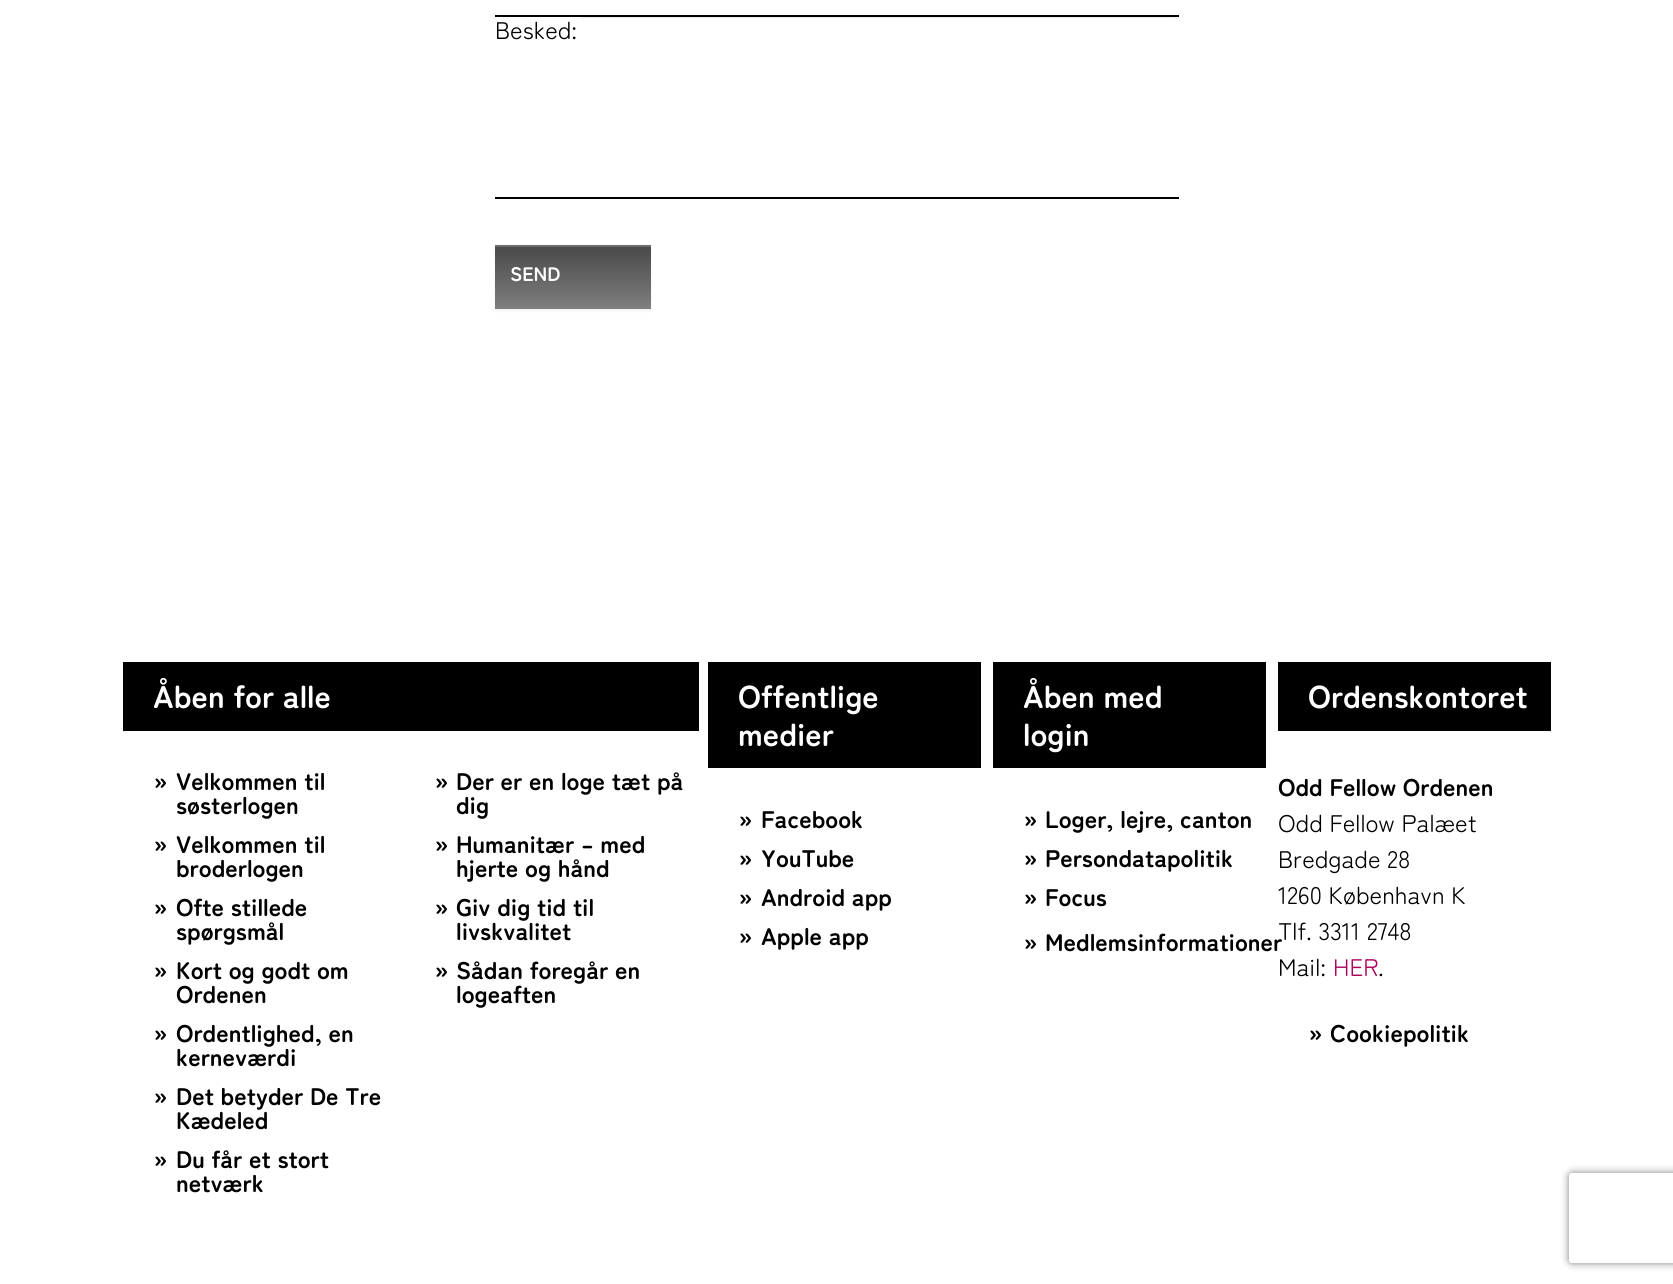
import math
import cairocffi as cairo

surface = cairo.ImageSurface(cairo.FORMAT_RGB24, 1673, 1284)
ctx = cairo.Context(surface)
options = cairo.FontOptions()
options.set_hint_metrics(cairo.HINT_METRICS_OFF)
options.set_hint_style(cairo.HINT_STYLE_NONE)
ctx.set_font_options(options)
ctx.set_miter_limit(4)


def rgb(r, g, b):
    ctx.set_source_rgb(r / 255, g / 255, b / 255)


def face(family, size, italic, bold):
    ctx.select_font_face(family, cairo.FONT_SLANT_ITALIC if italic else cairo.FONT_SLANT_NORMAL, cairo.FONT_WEIGHT_BOLD if bold else cairo.FONT_WEIGHT_NORMAL)
    ctx.set_font_size(size)


def label(x, y, s):
    ctx.move_to(x, y)
    ctx.show_text(s)


def rect(x, y, w, h):
    ctx.rectangle(x, y, w, h)
    ctx.fill()


def rrect(x, y, w, h, r):
    ctx.new_sub_path()
    for i, (u, v) in enumerate([(x + w - r, y + h - r), (x + r, y + h - r), (x + r, y + r), (x + w - r, y + r)]):
        ctx.arc(u, v, r, i * math.pi / 2, (i + 1) * math.pi / 2)
    ctx.close_path()


def soft_shadow(x, y, w, h, r, blur, alpha):
    ctx.push_group_with_content(cairo.CONTENT_ALPHA)
    ctx.set_operator(cairo.OPERATOR_SOURCE)
    for i in range(15, -16, -2):
        e = blur * i / 6
        if min(w, h) + 2 * e > 0:
            ctx.set_source_rgba(0, 0, 0, alpha * math.erfc((i - 1) / 8.5) / 2)
            rrect(x - e, y - e, w + 2 * e, h + 2 * e, max(0, min(r + e + blur * .6, min(w, h) / 2 + e)))
            ctx.fill()
    ctx.mask(ctx.pop_group())


rgb(255, 255, 255)
ctx.paint()
rgb(0, 0, 0)
rect(495, 15, 684, 2)
rect(495, 197, 684, 2)
rgb(236, 236, 236)
ctx.new_path()
ctx.move_to(582, 18)
ctx.line_to(1174, 18)
ctx.curve_to(1177, 18, 1179, 20, 1179, 22)
ctx.curve_to(1179, 19, 1177, 17, 1174, 17)
ctx.line_to(583, 17)
ctx.curve_to(580, 17, 578, 19, 578, 22)
ctx.curve_to(578, 20, 580, 18, 582, 18)
ctx.close_path()
ctx.fill()
face('Zen Maru Gothic', 24, 0, 0)
rgb(0, 0, 0)
label(495, 39, 'Besked:')
rgb(0, 0, 0)
soft_shadow(495, 246, 156, 65, 0, 1.5, 0.05)
gradient = cairo.LinearGradient(573, 309, 573, 245)
gradient.add_color_stop_rgba(0, 0.498, 0.498, 0.498, 1)
gradient.add_color_stop_rgba(1, 0.282, 0.282, 0.282, 1)
ctx.set_source(gradient)
rect(495, 247, 156, 62)
rgb(109, 109, 109)
rect(495, 245, 156, 2)
face('Zen Maru Gothic', 19.5, 0, 1)
rgb(255, 255, 255)
label(510, 281, 'SEND')
rgb(0, 0, 0)
rect(123, 662, 576, 69)
face('Zen Maru Gothic', 31.5, 0, 1)
rgb(255, 255, 255)
label(153, 708, 'Åben for alle')
face('Zen Maru Gothic', 24, 0, 1)
rgb(0, 0, 0)
label(153, 790, '»')
label(176, 790, 'Velkommen til')
label(176, 814, 'søsterlogen')
label(153, 853, '»')
label(176, 853, 'Velkommen til')
label(176, 877, 'broderlogen')
label(153, 916, '»')
label(176, 916, 'Ofte stillede')
label(176, 940, 'spørgsmål')
label(153, 979, '»')
label(176, 979, 'Kort og godt om')
label(176, 1003, 'Ordenen')
label(153, 1042, '»')
label(176, 1042, 'Ordentlighed, en')
label(176, 1066, 'kerneværdi')
label(153, 1105, '»')
label(176, 1105, 'Det betyder De Tre')
label(176, 1129, 'Kædeled')
label(153, 1168, '»')
label(176, 1168, 'Du får et stort')
label(176, 1192, 'netværk')
label(434, 790, '»')
label(456, 790, 'Der er en loge tæt på')
label(456, 814, 'dig')
label(434, 853, '»')
label(456, 853, 'Humanitær – med')
label(456, 877, 'hjerte og hånd')
label(434, 916, '»')
label(456, 916, 'Giv dig tid til')
label(456, 940, 'livskvalitet')
label(434, 979, '»')
label(456, 979, 'Sådan foregår en')
label(456, 1003, 'logeaften')
rect(708, 662, 273, 106)
face('Zen Maru Gothic', 31.5, 0, 1)
rgb(255, 255, 255)
label(738, 708, 'Offentlige')
label(738, 746, 'medier')
face('Zen Maru Gothic', 24, 0, 1)
rgb(0, 0, 0)
label(738, 828, '»')
label(761, 828, 'Facebook')
label(738, 867, '»')
label(761, 867, 'YouTube')
label(738, 906, '»')
label(761, 906, 'Android app')
label(738, 945, '»')
label(761, 945, 'Apple app')
rect(993, 662, 273, 106)
face('Zen Maru Gothic', 31.5, 0, 1)
rgb(255, 255, 255)
label(1023, 708, 'Åben med')
label(1023, 746, 'login')
face('Zen Maru Gothic', 24, 0, 1)
rgb(0, 0, 0)
label(1023, 828, '»')
label(1045, 828, 'Loger, lejre, canton')
label(1023, 867, '»')
label(1045, 867, 'Persondatapolitik')
label(1023, 906, '»')
label(1045, 906, 'Focus')
label(1023, 951, '»')
label(1045, 951, 'Medlemsinformationer')
rect(1278, 662, 273, 69)
face('Zen Maru Gothic', 31.5, 0, 1)
rgb(255, 255, 255)
label(1308, 708, 'Ordenskontoret')
face('Zen Maru Gothic', 24, 0, 1)
rgb(0, 0, 0)
label(1278, 796, 'Odd Fellow Ordenen')
face('Zen Maru Gothic', 24, 0, 0)
label(1278, 832, 'Odd Fellow Palæet')
label(1278, 868, 'Bredgade 28')
label(1278, 904, '1260 København K')
label(1278, 940, 'Tlf. 3311 2748')
label(1278, 976, 'Mail:')
rgb(173, 0, 91)
label(1333, 976, 'HER')
rgb(0, 0, 0)
label(1378, 976, '.')
face('Zen Maru Gothic', 24, 0, 1)
label(1308, 1042, '»')
label(1330, 1042, 'Cookiepolitik')
ctx.save()
ctx.set_fill_rule(cairo.FILL_RULE_EVEN_ODD)
ctx.new_path()
ctx.move_to(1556, 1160)
ctx.line_to(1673, 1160)
ctx.line_to(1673, 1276)
ctx.line_to(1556, 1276)
ctx.close_path()
ctx.move_to(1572, 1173)
ctx.line_to(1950, 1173)
ctx.curve_to(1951.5, 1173, 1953, 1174.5, 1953, 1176)
ctx.line_to(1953, 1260)
ctx.curve_to(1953, 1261.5, 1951.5, 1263, 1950, 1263)
ctx.line_to(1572, 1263)
ctx.curve_to(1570.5, 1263, 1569, 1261.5, 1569, 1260)
ctx.line_to(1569, 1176)
ctx.curve_to(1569, 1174.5, 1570.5, 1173, 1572, 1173)
ctx.close_path()
ctx.clip()
rgb(128, 128, 128)
soft_shadow(1569, 1173, 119, 90, 3, 4, 1)
ctx.restore()
surface.write_to_png('render.png')
